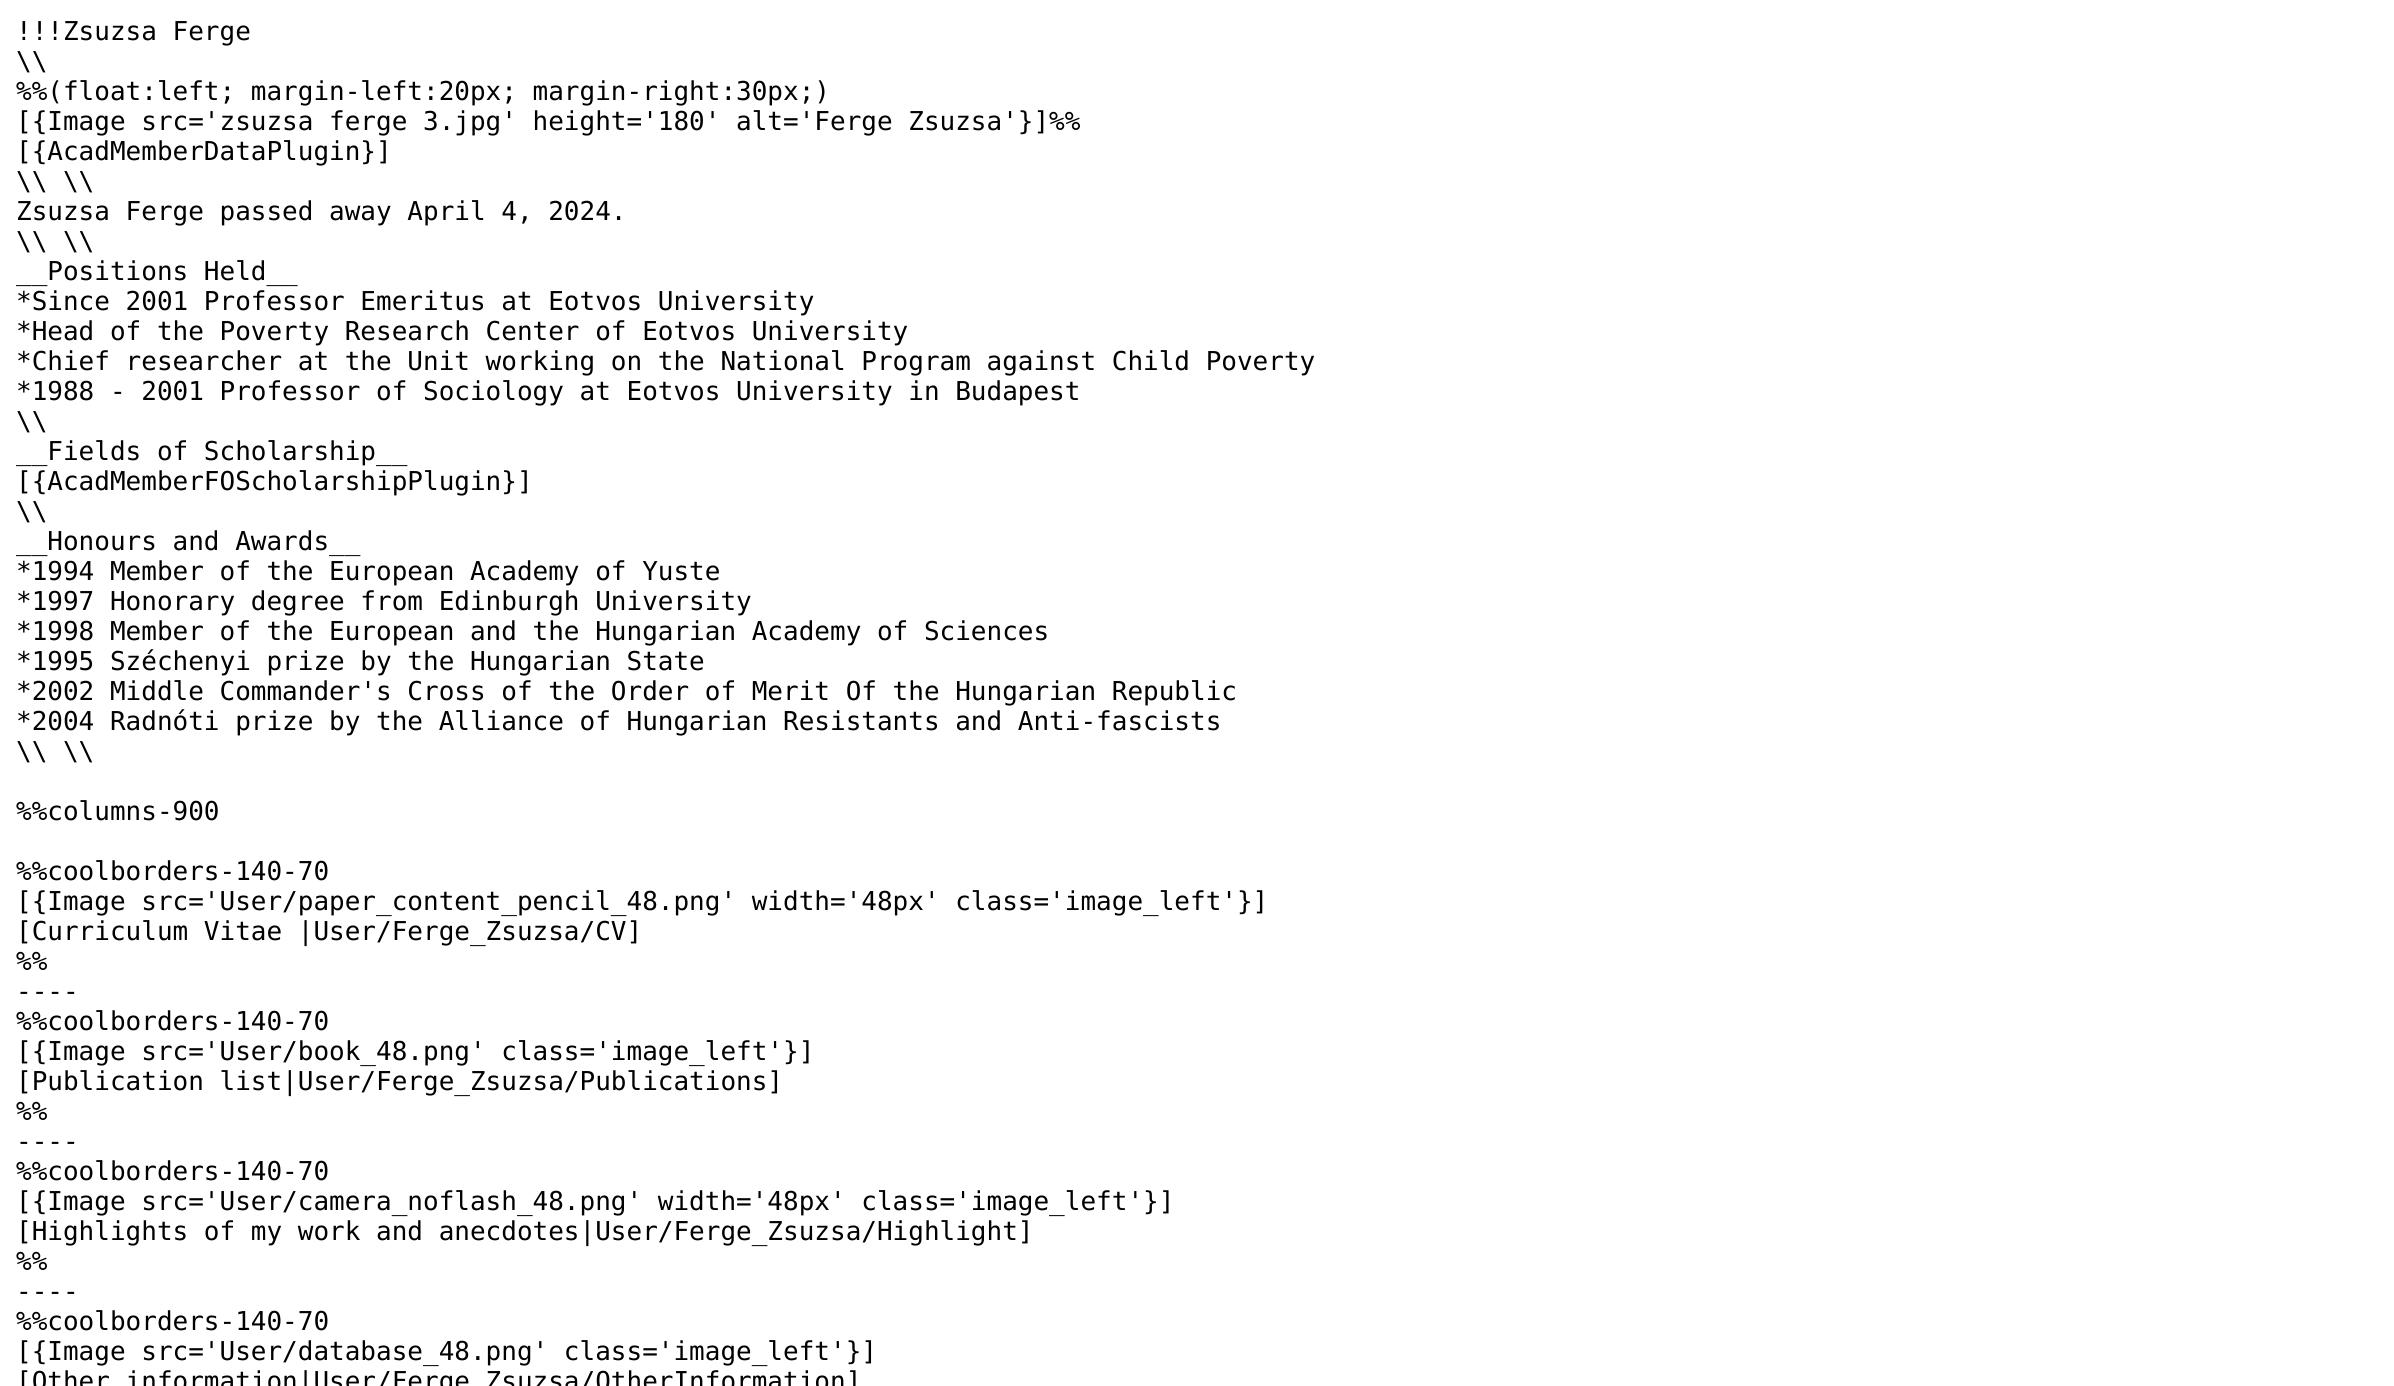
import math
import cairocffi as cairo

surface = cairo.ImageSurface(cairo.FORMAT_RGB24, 2394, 1386)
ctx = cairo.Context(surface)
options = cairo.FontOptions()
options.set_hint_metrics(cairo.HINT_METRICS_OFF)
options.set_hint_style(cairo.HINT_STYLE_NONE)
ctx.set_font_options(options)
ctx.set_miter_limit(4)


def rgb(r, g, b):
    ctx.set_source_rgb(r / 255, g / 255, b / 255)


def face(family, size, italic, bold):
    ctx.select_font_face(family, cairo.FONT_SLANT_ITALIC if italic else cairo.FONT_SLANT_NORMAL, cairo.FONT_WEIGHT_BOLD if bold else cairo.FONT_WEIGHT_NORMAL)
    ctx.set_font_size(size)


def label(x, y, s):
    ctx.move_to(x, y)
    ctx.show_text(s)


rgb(255, 255, 255)
ctx.paint()
face('DejaVu Sans Mono', 26, 0, 0)
rgb(0, 0, 0)
label(16, 40, '!!!Zsuzsa Ferge')
label(16, 70, '\\\\')
label(16, 100, '%%(float:left; margin-left:20px; margin-right:30px;)')
label(16, 130, '[{Image src=\'zsuzsa ferge 3.jpg\' height=\'180\' alt=\'Ferge Zsuzsa\'}]%%')
label(16, 160, '[{AcadMemberDataPlugin}]')
label(16, 190, '\\\\ \\\\')
label(16, 220, 'Zsuzsa Ferge passed away April 4, 2024.')
label(16, 250, '\\\\ \\\\')
label(16, 280, '__Positions Held__')
label(16, 310, '*Since 2001 Professor Emeritus at Eotvos University')
label(16, 340, '*Head of the Poverty Research Center of Eotvos University')
label(16, 370, '*Chief researcher at the Unit working on the National Program against Child Poverty')
label(16, 400, '*1988 - 2001 Professor of Sociology at Eotvos University in Budapest')
label(16, 430, '\\\\')
label(16, 460, '__Fields of Scholarship__')
label(16, 490, '[{AcadMemberFOScholarshipPlugin}]')
label(16, 520, '\\\\')
label(16, 550, '__Honours and Awards__')
label(16, 580, '*1994 Member of the European Academy of Yuste')
label(16, 610, '*1997 Honorary degree from Edinburgh University')
label(16, 640, '*1998 Member of the European and the Hungarian Academy of Sciences')
label(16, 670, '*1995 Széchenyi prize by the Hungarian State')
label(16, 700, '*2002 Middle Commander\'s Cross of the Order of Merit Of the Hungarian Republic')
label(16, 730, '*2004 Radnóti prize by the Alliance of Hungarian Resistants and Anti-fascists')
label(16, 760, '\\\\ \\\\')
label(16, 820, '%%columns-900')
label(16, 880, '%%coolborders-140-70')
label(16, 910, '[{Image src=\'User/paper_content_pencil_48.png\' width=\'48px\' class=\'image_left\'}]')
label(16, 940, '[Curriculum Vitae |User/Ferge_Zsuzsa/CV]')
label(16, 970, '%%')
label(16, 1000, '----')
label(16, 1030, '%%coolborders-140-70')
label(16, 1060, '[{Image src=\'User/book_48.png\' class=\'image_left\'}]')
label(16, 1090, '[Publication list|User/Ferge_Zsuzsa/Publications]')
label(16, 1120, '%%')
label(16, 1150, '----')
label(16, 1180, '%%coolborders-140-70')
label(16, 1210, '[{Image src=\'User/camera_noflash_48.png\' width=\'48px\' class=\'image_left\'}]')
label(16, 1240, '[Highlights of my work and anecdotes|User/Ferge_Zsuzsa/Highlight]')
label(16, 1270, '%%')
label(16, 1300, '----')
label(16, 1330, '%%coolborders-140-70')
label(16, 1360, '[{Image src=\'User/database_48.png\' class=\'image_left\'}]')
label(16, 1390, '[Other information|User/Ferge_Zsuzsa/OtherInformation]')
surface.write_to_png('render.png')
